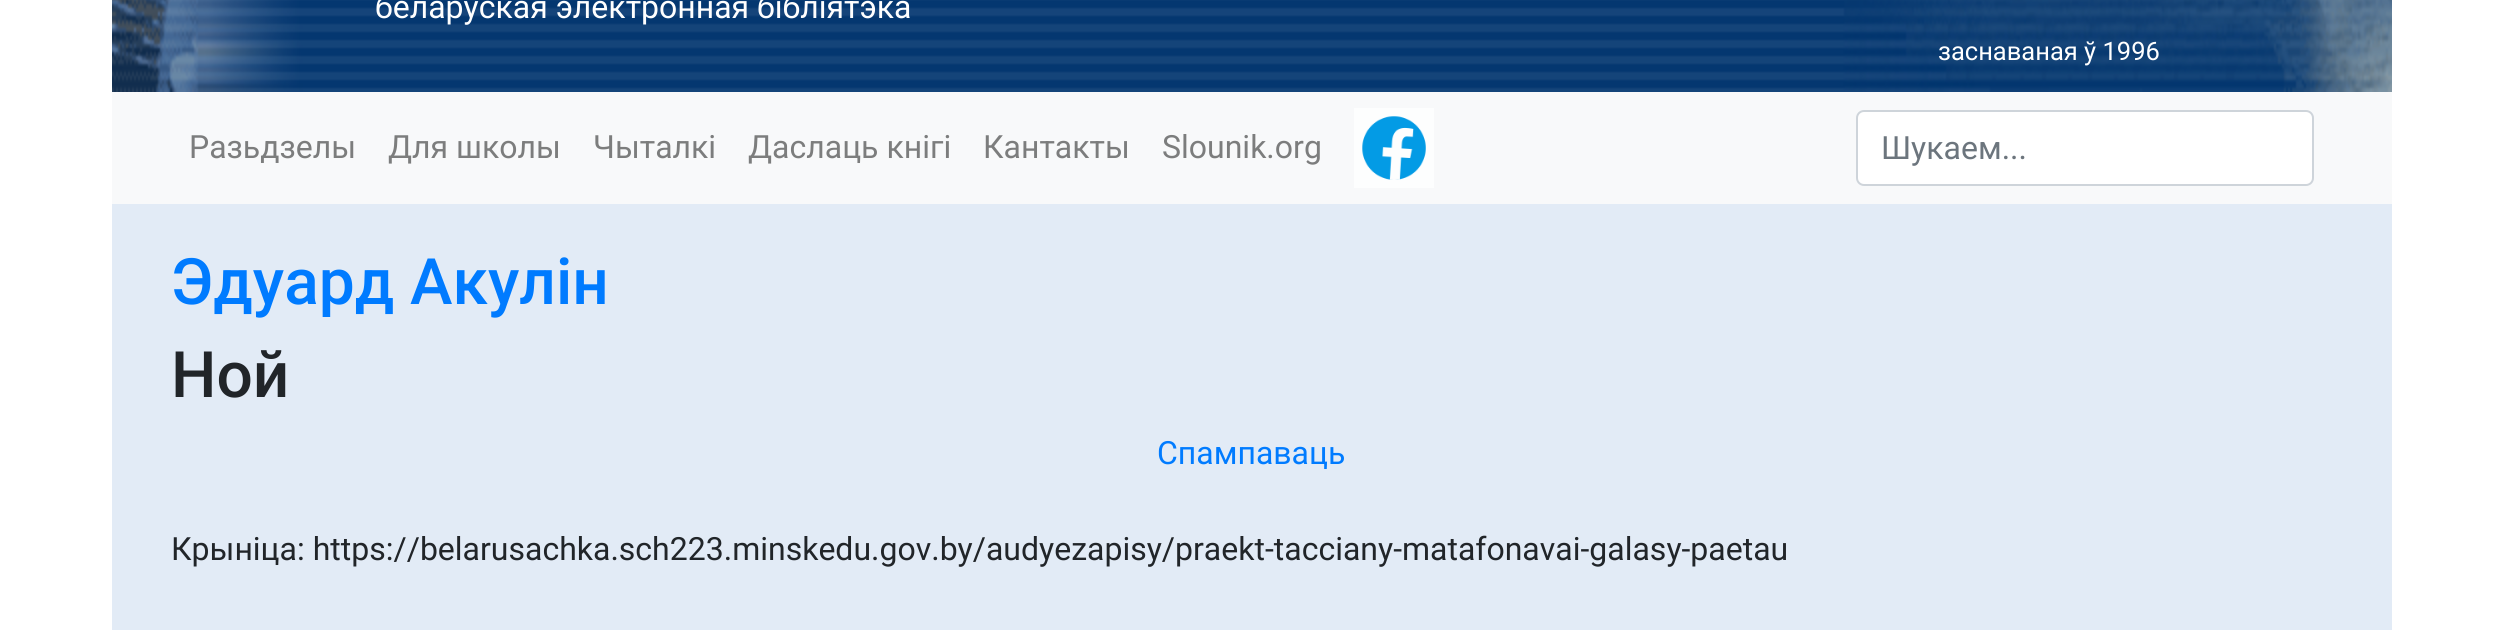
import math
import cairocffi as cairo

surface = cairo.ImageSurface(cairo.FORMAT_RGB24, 2501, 630)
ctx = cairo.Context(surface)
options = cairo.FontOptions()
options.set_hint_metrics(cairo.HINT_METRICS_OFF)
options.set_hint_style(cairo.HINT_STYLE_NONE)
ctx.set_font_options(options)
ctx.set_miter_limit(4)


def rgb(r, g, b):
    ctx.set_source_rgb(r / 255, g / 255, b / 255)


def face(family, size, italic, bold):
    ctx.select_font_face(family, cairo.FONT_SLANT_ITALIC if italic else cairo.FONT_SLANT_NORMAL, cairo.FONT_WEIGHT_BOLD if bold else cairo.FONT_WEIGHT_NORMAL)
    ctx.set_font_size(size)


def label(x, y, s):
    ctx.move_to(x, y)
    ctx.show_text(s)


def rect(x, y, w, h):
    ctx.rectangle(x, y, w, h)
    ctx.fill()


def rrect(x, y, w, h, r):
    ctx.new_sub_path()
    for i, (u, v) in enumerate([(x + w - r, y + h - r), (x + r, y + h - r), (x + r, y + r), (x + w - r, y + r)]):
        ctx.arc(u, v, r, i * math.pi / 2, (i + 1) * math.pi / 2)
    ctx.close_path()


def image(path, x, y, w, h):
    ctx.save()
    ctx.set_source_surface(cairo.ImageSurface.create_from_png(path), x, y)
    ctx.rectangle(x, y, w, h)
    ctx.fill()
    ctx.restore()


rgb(255, 255, 255)
ctx.paint()
image('image0.png', 112, 0, 2280, 92)
face('Roboto', 32, 0, 0)
rgb(255, 255, 255)
label(375, 18, 'беларуская электронная бібліятэка')
face('Roboto', 25.5, 0, 0)
label(1938, 60, 'заснаваная ў 1996')
rgb(226, 235, 246)
rect(112, 204, 2280, 426)
rgb(248, 249, 250)
rect(112, 92, 2280, 112)
face('Roboto', 32, 0, 0)
rgb(124, 125, 125)
label(189, 158, 'Разьдзелы')
label(388, 158, 'Для школы')
label(593, 158, 'Чыталкі')
label(748, 158, 'Даслаць кнігі')
label(983, 158, 'Кантакты')
label(1162, 158, 'Slounik.org')
image('image1.png', 1354, 108, 80, 80)
rgb(255, 255, 255)
rrect(1857, 111, 456, 74, 7)
ctx.fill_preserve()
rgb(206, 212, 218)
ctx.stroke()
rgb(108, 117, 125)
label(1881, 159, 'Шукаем...')
face('Roboto Medium', 64, 0, 0)
rgb(0, 123, 255)
label(171, 304, 'Эдуард Акулін')
rgb(33, 37, 41)
label(171, 397, 'Ной')
face('Roboto', 32, 0, 0)
rgb(0, 123, 255)
label(1157, 464, 'Спампаваць')
rgb(33, 37, 41)
label(171, 560, 'Крыніца: https://belarusachka.sch223.minskedu.gov.by/audyezapisy/praekt-tacciany-matafonavai-galasy-paetau')
surface.write_to_png('render.png')
